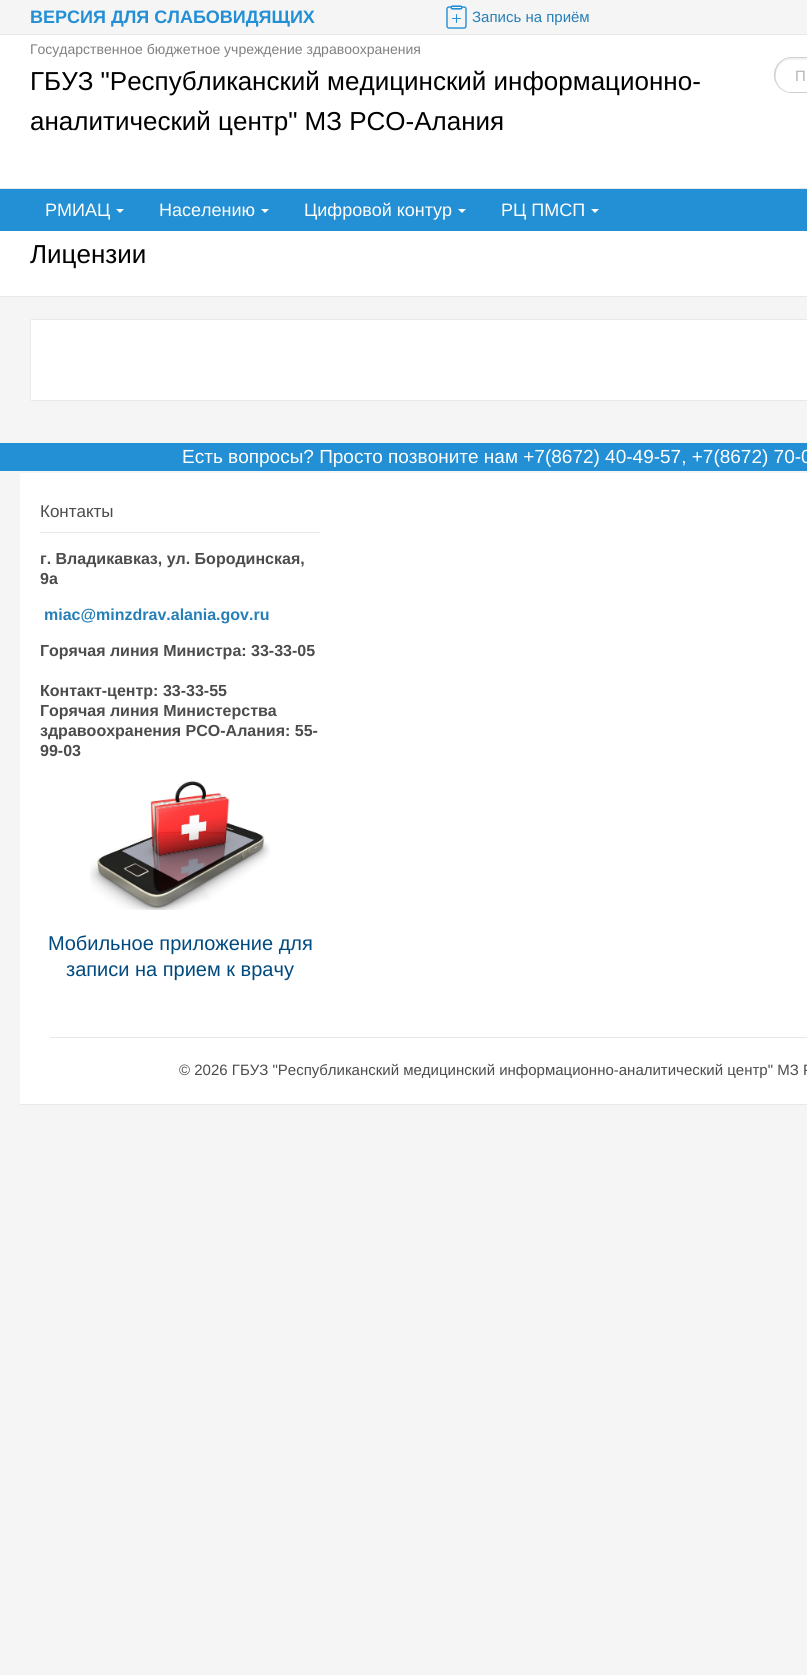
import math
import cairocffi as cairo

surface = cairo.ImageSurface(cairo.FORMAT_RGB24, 807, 1675)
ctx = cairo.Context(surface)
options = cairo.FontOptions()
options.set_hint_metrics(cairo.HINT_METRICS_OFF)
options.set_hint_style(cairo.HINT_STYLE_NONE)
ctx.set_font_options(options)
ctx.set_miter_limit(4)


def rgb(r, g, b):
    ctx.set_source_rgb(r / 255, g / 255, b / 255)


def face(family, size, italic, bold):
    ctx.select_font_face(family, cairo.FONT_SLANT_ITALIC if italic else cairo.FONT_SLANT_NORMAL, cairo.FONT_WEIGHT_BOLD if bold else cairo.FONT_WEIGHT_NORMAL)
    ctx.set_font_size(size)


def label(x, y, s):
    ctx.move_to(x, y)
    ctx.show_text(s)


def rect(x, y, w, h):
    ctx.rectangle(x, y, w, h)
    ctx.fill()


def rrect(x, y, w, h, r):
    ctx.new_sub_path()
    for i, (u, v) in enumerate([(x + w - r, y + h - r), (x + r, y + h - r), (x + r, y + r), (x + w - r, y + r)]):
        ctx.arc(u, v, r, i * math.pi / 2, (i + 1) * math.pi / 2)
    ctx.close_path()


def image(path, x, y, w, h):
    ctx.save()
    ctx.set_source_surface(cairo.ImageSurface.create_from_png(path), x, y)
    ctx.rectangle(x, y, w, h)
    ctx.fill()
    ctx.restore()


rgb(245, 245, 245)
ctx.paint()
rgb(232, 232, 232)
rect(0, 34, 807, 1)
face('Liberation Sans', 18, 0, 1)
rgb(35, 143, 212)
label(30, 23, 'ВЕРСИЯ ДЛЯ СЛАБОВИДЯЩИХ')
image('image0.png', 446, 5, 21, 24)
face('Liberation Sans', 15, 0, 0)
rgb(37, 127, 184)
label(472, 22, 'Запись на приём')
rgb(255, 255, 255)
rect(0, 35, 807, 153)
rgb(232, 232, 232)
rect(0, 188, 807, 1)
face('Liberation Sans', 14, 0, 0)
rgb(128, 128, 128)
label(30, 54, 'Государственное бюджетное учреждение здравоохранения')
face('Liberation Sans', 26, 0, 0)
rgb(0, 0, 0)
label(30, 90, 'ГБУЗ "Республиканский медицинский информационно-')
label(30, 130, 'аналитический центр" МЗ РСО-Алания')
rgb(242, 242, 242)
ctx.new_path()
ctx.move_to(792, 60)
ctx.line_to(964, 60)
ctx.line_to(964, 58)
ctx.line_to(792, 58)
ctx.curve_to(783, 58, 775, 66, 775, 75)
ctx.line_to(776, 79)
ctx.curve_to(775, 70, 780, 60, 792, 60)
ctx.close_path()
ctx.fill()
rgb(206, 206, 206)
ctx.set_fill_rule(cairo.FILL_RULE_EVEN_ODD)
ctx.new_path()
ctx.move_to(792, 57)
ctx.line_to(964, 57)
ctx.line_to(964, 93)
ctx.line_to(792, 93)
ctx.curve_to(782, 93, 774, 85, 774, 75)
ctx.curve_to(774, 65, 782, 57, 792, 57)
ctx.close_path()
ctx.move_to(792, 58)
ctx.line_to(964, 58)
ctx.line_to(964, 92)
ctx.line_to(789, 92)
ctx.curve_to(769, 88, 772, 58, 792, 58)
ctx.close_path()
ctx.fill()
face('Liberation Sans', 15, 0, 0)
rgb(180, 180, 180)
label(795, 81, 'П')
rgb(35, 143, 212)
rect(0, 189, 807, 42)
face('Liberation Sans', 18, 0, 0)
rgb(255, 255, 255)
label(45, 216, 'РМИАЦ')
ctx.set_fill_rule(cairo.FILL_RULE_WINDING)
ctx.new_path()
ctx.move_to(116, 209)
ctx.line_to(124, 209)
ctx.line_to(120, 213)
ctx.close_path()
ctx.fill()
label(159, 216, 'Населению')
ctx.new_path()
ctx.move_to(261, 209)
ctx.line_to(269, 209)
ctx.line_to(265, 213)
ctx.close_path()
ctx.fill()
label(304, 216, 'Цифровой контур')
ctx.new_path()
ctx.move_to(458, 209)
ctx.line_to(466, 209)
ctx.line_to(462, 213)
ctx.close_path()
ctx.fill()
label(501, 216, 'РЦ ПМСП')
ctx.new_path()
ctx.move_to(591, 209)
ctx.line_to(599, 209)
ctx.line_to(595, 213)
ctx.close_path()
ctx.fill()
rect(0, 231, 807, 65)
rgb(232, 232, 232)
rect(0, 296, 807, 1)
face('Liberation Sans', 26, 0, 0)
rgb(0, 0, 0)
label(30, 263, 'Лицензии')
rgb(255, 255, 255)
rrect(30.5, 319.5, 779, 81, 1.5)
ctx.fill_preserve()
rgb(232, 232, 232)
ctx.set_line_width(1)
ctx.stroke()
rgb(35, 143, 212)
rect(0, 443, 807, 28)
face('Liberation Sans', 19, 0, 0)
rgb(255, 255, 255)
label(182, 463, 'Есть вопросы? Просто позвоните нам +7(8672) 40-49-57, +7(8672) 70-0')
rect(20, 473, 787, 631)
rgb(232, 232, 232)
rect(20, 1104, 787, 1)
rect(40, 532, 280, 1)
face('Liberation Sans', 17, 0, 0)
rgb(76, 76, 76)
label(40, 517, 'Контакты')
face('Liberation Sans', 16, 0, 1)
label(40, 564, 'г. Владикавказ, ул. Бородинская,')
label(40, 584, '9а')
rgb(37, 127, 184)
label(44, 620, 'miac@minzdrav.alania.gov.ru')
rgb(76, 76, 76)
label(40, 656, 'Горячая линия Министра: 33-33-05')
label(40, 696, 'Контакт-центр: 33-33-55')
label(40, 716, 'Горячая линия Министерства')
label(40, 736, 'здравоохранения РСО-Алания: 55-')
label(40, 756, '99-03')
image('image1.png', 90, 781, 180, 129)
face('Liberation Sans', 20, 0, 0)
rgb(0, 74, 128)
label(48, 950, 'Мобильное приложение для')
label(66, 976, 'записи на прием к врачу')
rgb(232, 232, 232)
rect(50, 1037, 757, 1)
face('Liberation Sans', 15, 0, 0)
rgb(76, 76, 76)
label(179, 1075, '© 2026 ГБУЗ "Республиканский медицинский информационно-аналитический центр" МЗ Р')
surface.write_to_png('render.png')
